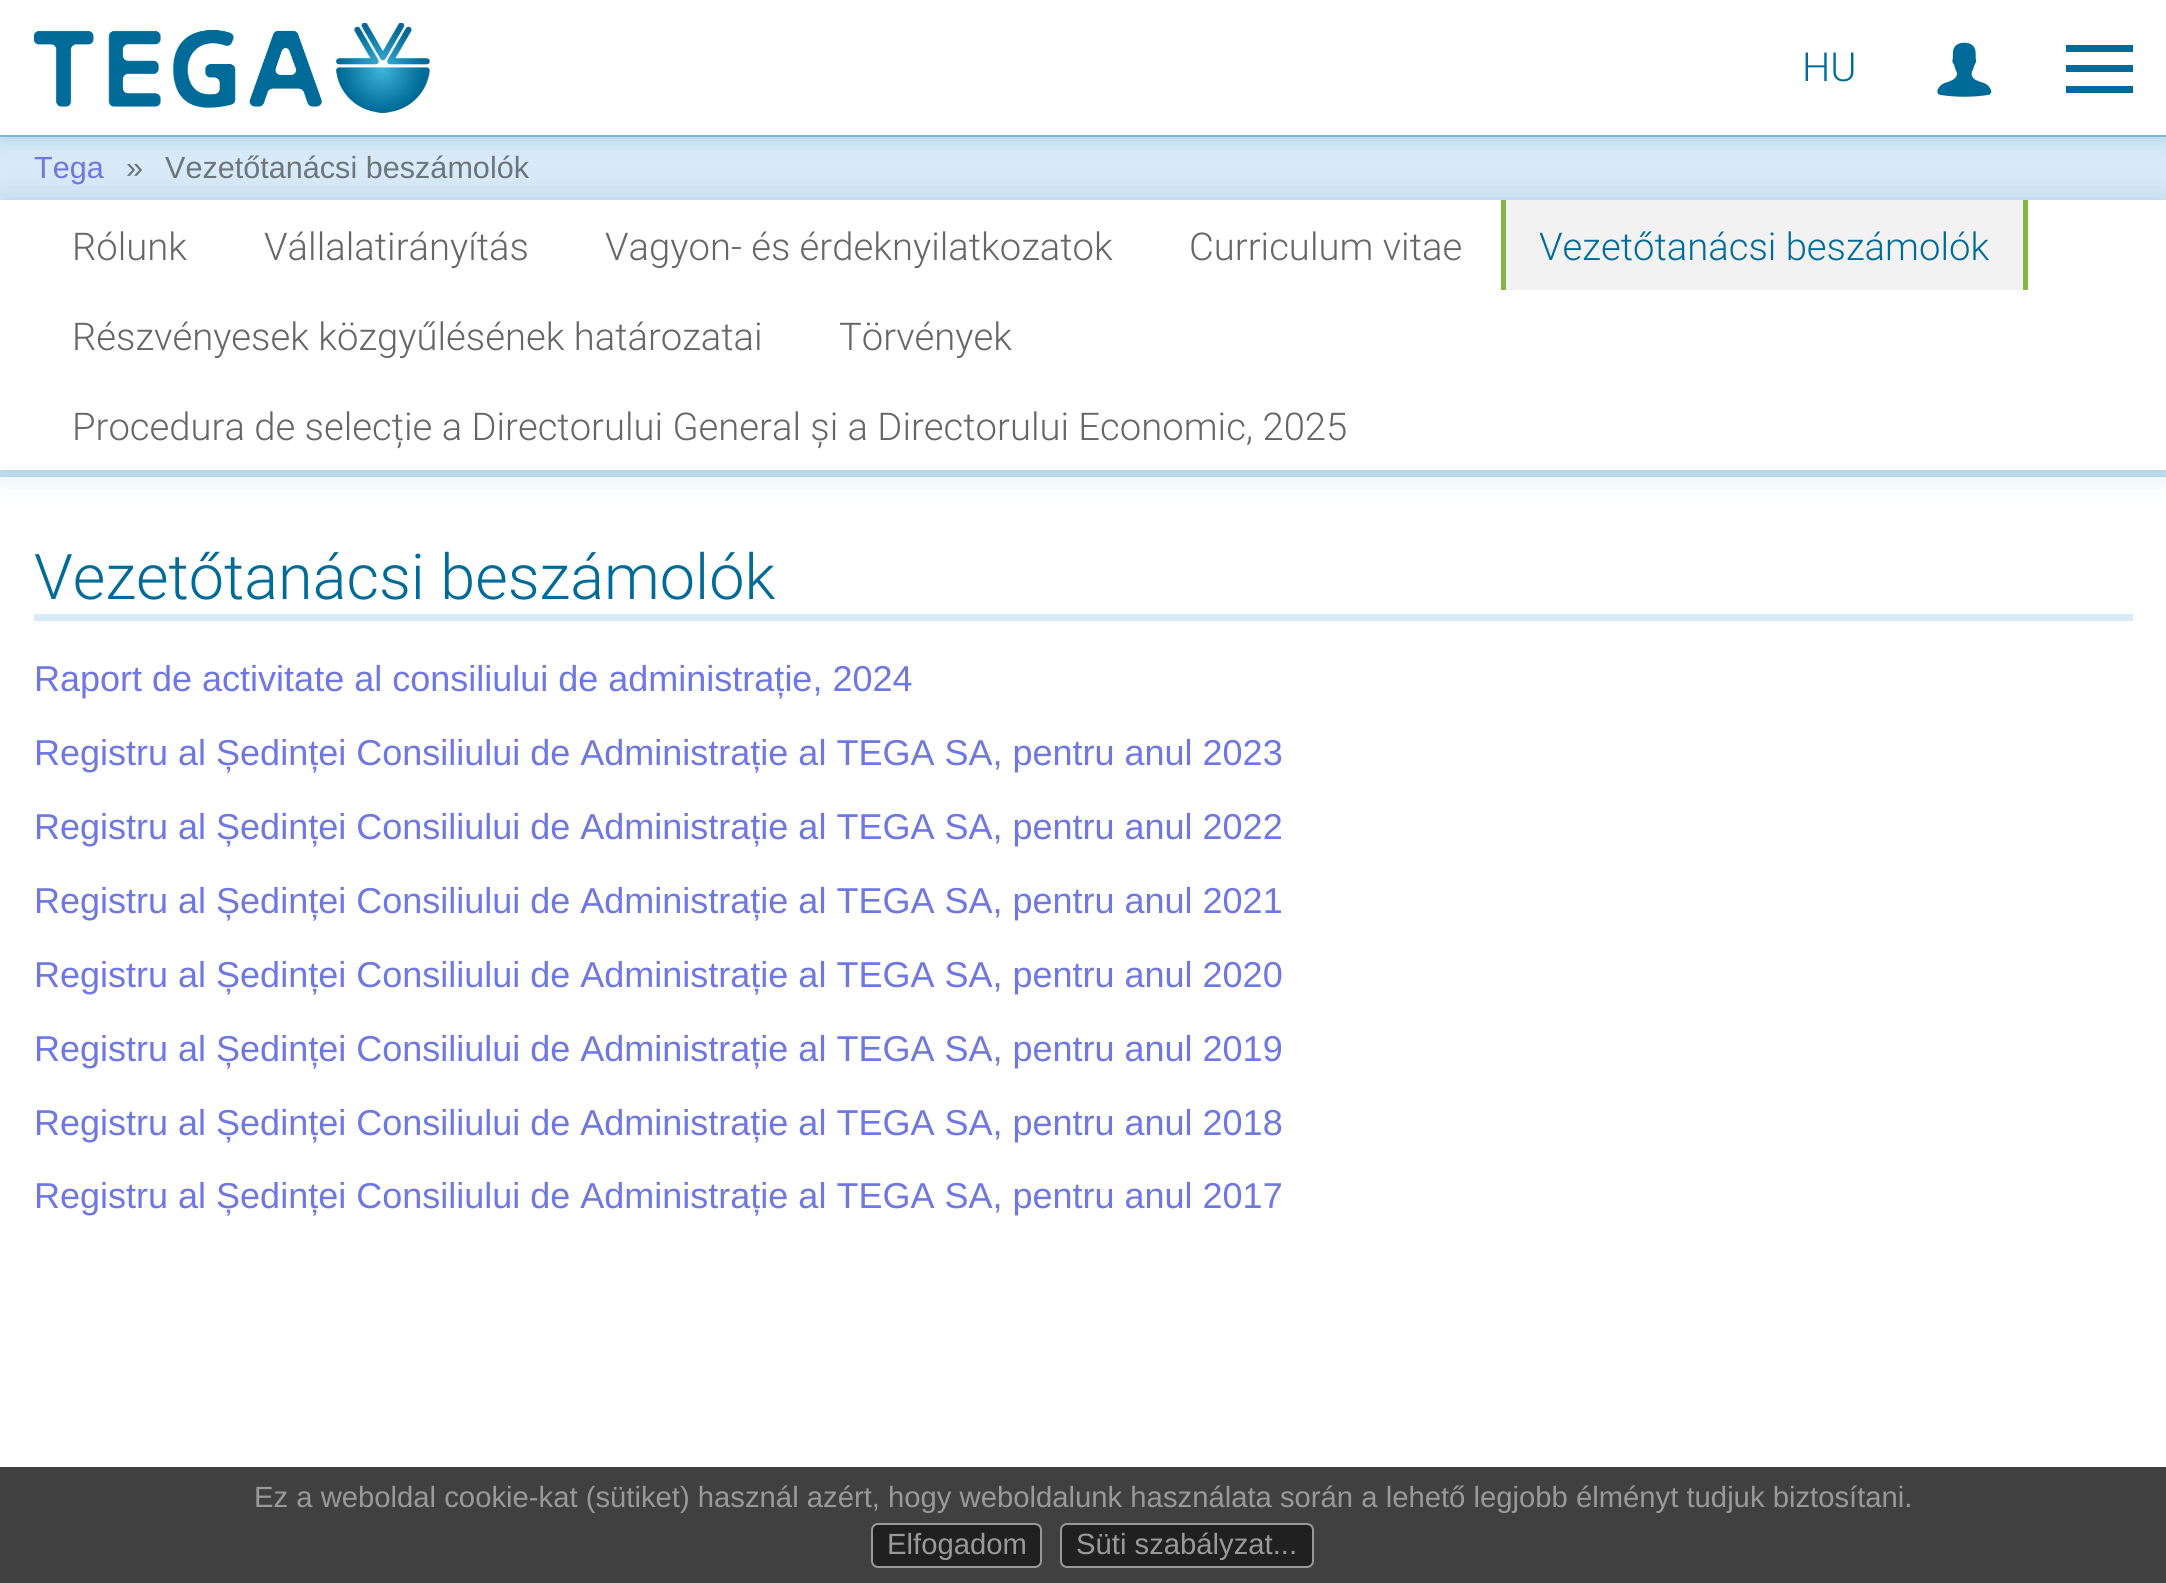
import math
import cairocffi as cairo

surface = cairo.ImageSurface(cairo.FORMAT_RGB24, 2166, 1583)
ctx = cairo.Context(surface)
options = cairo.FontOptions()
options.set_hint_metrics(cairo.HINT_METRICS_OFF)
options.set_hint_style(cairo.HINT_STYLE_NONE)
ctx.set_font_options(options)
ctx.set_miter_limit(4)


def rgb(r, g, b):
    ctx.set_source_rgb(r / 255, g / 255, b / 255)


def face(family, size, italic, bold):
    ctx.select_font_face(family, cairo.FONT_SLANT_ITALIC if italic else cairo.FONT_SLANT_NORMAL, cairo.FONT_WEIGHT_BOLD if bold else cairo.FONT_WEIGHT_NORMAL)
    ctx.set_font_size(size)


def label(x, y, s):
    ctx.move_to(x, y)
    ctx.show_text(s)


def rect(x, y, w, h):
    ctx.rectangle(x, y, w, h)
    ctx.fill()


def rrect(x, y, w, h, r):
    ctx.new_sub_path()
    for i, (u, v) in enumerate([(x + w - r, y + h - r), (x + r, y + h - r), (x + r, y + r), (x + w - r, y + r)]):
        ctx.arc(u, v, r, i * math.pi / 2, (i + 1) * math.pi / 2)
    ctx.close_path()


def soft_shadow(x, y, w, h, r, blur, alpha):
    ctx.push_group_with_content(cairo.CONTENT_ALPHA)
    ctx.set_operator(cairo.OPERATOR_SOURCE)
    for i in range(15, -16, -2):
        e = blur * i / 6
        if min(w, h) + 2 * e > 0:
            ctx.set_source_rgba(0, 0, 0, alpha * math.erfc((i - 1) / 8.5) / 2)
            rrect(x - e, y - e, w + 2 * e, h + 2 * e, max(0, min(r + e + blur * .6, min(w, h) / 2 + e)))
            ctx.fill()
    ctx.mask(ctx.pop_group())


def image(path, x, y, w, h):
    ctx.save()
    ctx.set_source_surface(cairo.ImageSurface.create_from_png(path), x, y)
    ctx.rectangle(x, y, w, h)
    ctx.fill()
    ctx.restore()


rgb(218, 235, 248)
ctx.paint()
rgb(0, 107, 152)
soft_shadow(0, 0, 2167, 137, 0, 11, 0.25)
rgb(255, 255, 255)
rect(0, 0, 2166, 135)
rgb(128, 181, 204)
rect(0, 135, 2166, 2)
image('image0.png', 34, 23, 396, 90)
face('Roboto Light', 40, 0, 0)
rgb(0, 107, 152)
label(1802, 81, 'HU')
image('image1.png', 1937, 42, 55, 55)
rect(2066, 45, 67, 7)
rect(2066, 65, 67, 7)
rect(2066, 86, 67, 7)
face('Liberation Sans', 30.6, 0, 0)
rgb(111, 119, 226)
label(34, 178, 'Tega')
rgb(109, 118, 124)
label(126, 178, '»')
label(165, 178, 'Vezetőtanácsi beszámolók')
rgb(0, 107, 152)
soft_shadow(0, 477, 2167, 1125, 0, 17, 0.2)
rgb(255, 255, 255)
rect(0, 477, 2166, 990)
rgb(0, 107, 152)
soft_shadow(0, 200, 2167, 270, 0, 17, 0.2)
rgb(255, 255, 255)
rect(0, 200, 2166, 270)
face('Roboto Light', 38.25, 0, 0)
rgb(102, 102, 102)
label(72, 260, 'Rólunk')
label(264, 260, 'Vállalatirányítás')
label(605, 260, 'Vagyon- és érdeknyilatkozatok')
label(1189, 260, 'Curriculum vitae')
rgb(242, 242, 242)
rect(1506, 200, 517, 90)
rgb(131, 182, 69)
rect(2023, 200, 5, 90)
rect(1501, 200, 5, 90)
rgb(0, 107, 152)
label(1539, 260, 'Vezetőtanácsi beszámolók')
rgb(102, 102, 102)
label(72, 350, 'Részvényesek közgyűlésének határozatai')
label(839, 350, 'Törvények')
label(72, 440, 'Procedura de selecție a Directorului General și a Directorului Economic, 2025')
rgb(218, 235, 248)
rect(34, 614, 2099, 7)
face('Roboto Light', 63, 0, 0)
rgb(0, 107, 152)
label(34, 599, 'Vezetőtanácsi beszámolók')
face('Liberation Sans', 36, 0, 0)
rgb(111, 119, 226)
label(34, 691, 'Raport de activitate al consiliului de administrație, 2024')
label(34, 765, 'Registru al Ședinței Consiliului de Administrație al TEGA SA, pentru anul 2023')
label(34, 839, 'Registru al Ședinței Consiliului de Administrație al TEGA SA, pentru anul 2022')
label(34, 913, 'Registru al Ședinței Consiliului de Administrație al TEGA SA, pentru anul 2021')
label(34, 987, 'Registru al Ședinței Consiliului de Administrație al TEGA SA, pentru anul 2020')
label(34, 1061, 'Registru al Ședinței Consiliului de Administrație al TEGA SA, pentru anul 2019')
label(34, 1135, 'Registru al Ședinței Consiliului de Administrație al TEGA SA, pentru anul 2018')
label(34, 1208, 'Registru al Ședinței Consiliului de Administrație al TEGA SA, pentru anul 2017')
rgb(64, 64, 64)
rect(0, 1467, 2166, 116)
face('Liberation Sans', 29.25, 0, 0)
rgb(153, 153, 153)
label(254, 1507, 'Ez a weboldal cookie-kat (sütiket) használ azért, hogy weboldalunk használata során a lehető legjobb élményt tudjuk biztosítani.')
rgb(32, 32, 32)
rrect(872, 1524, 169, 43, 6)
ctx.fill_preserve()
rgb(153, 153, 153)
ctx.stroke()
label(887, 1554, 'Elfogadom')
rgb(32, 32, 32)
rrect(1061, 1524, 252, 43, 6)
ctx.fill_preserve()
rgb(153, 153, 153)
ctx.stroke()
label(1076, 1554, 'Süti szabályzat...')
surface.write_to_png('render.png')
